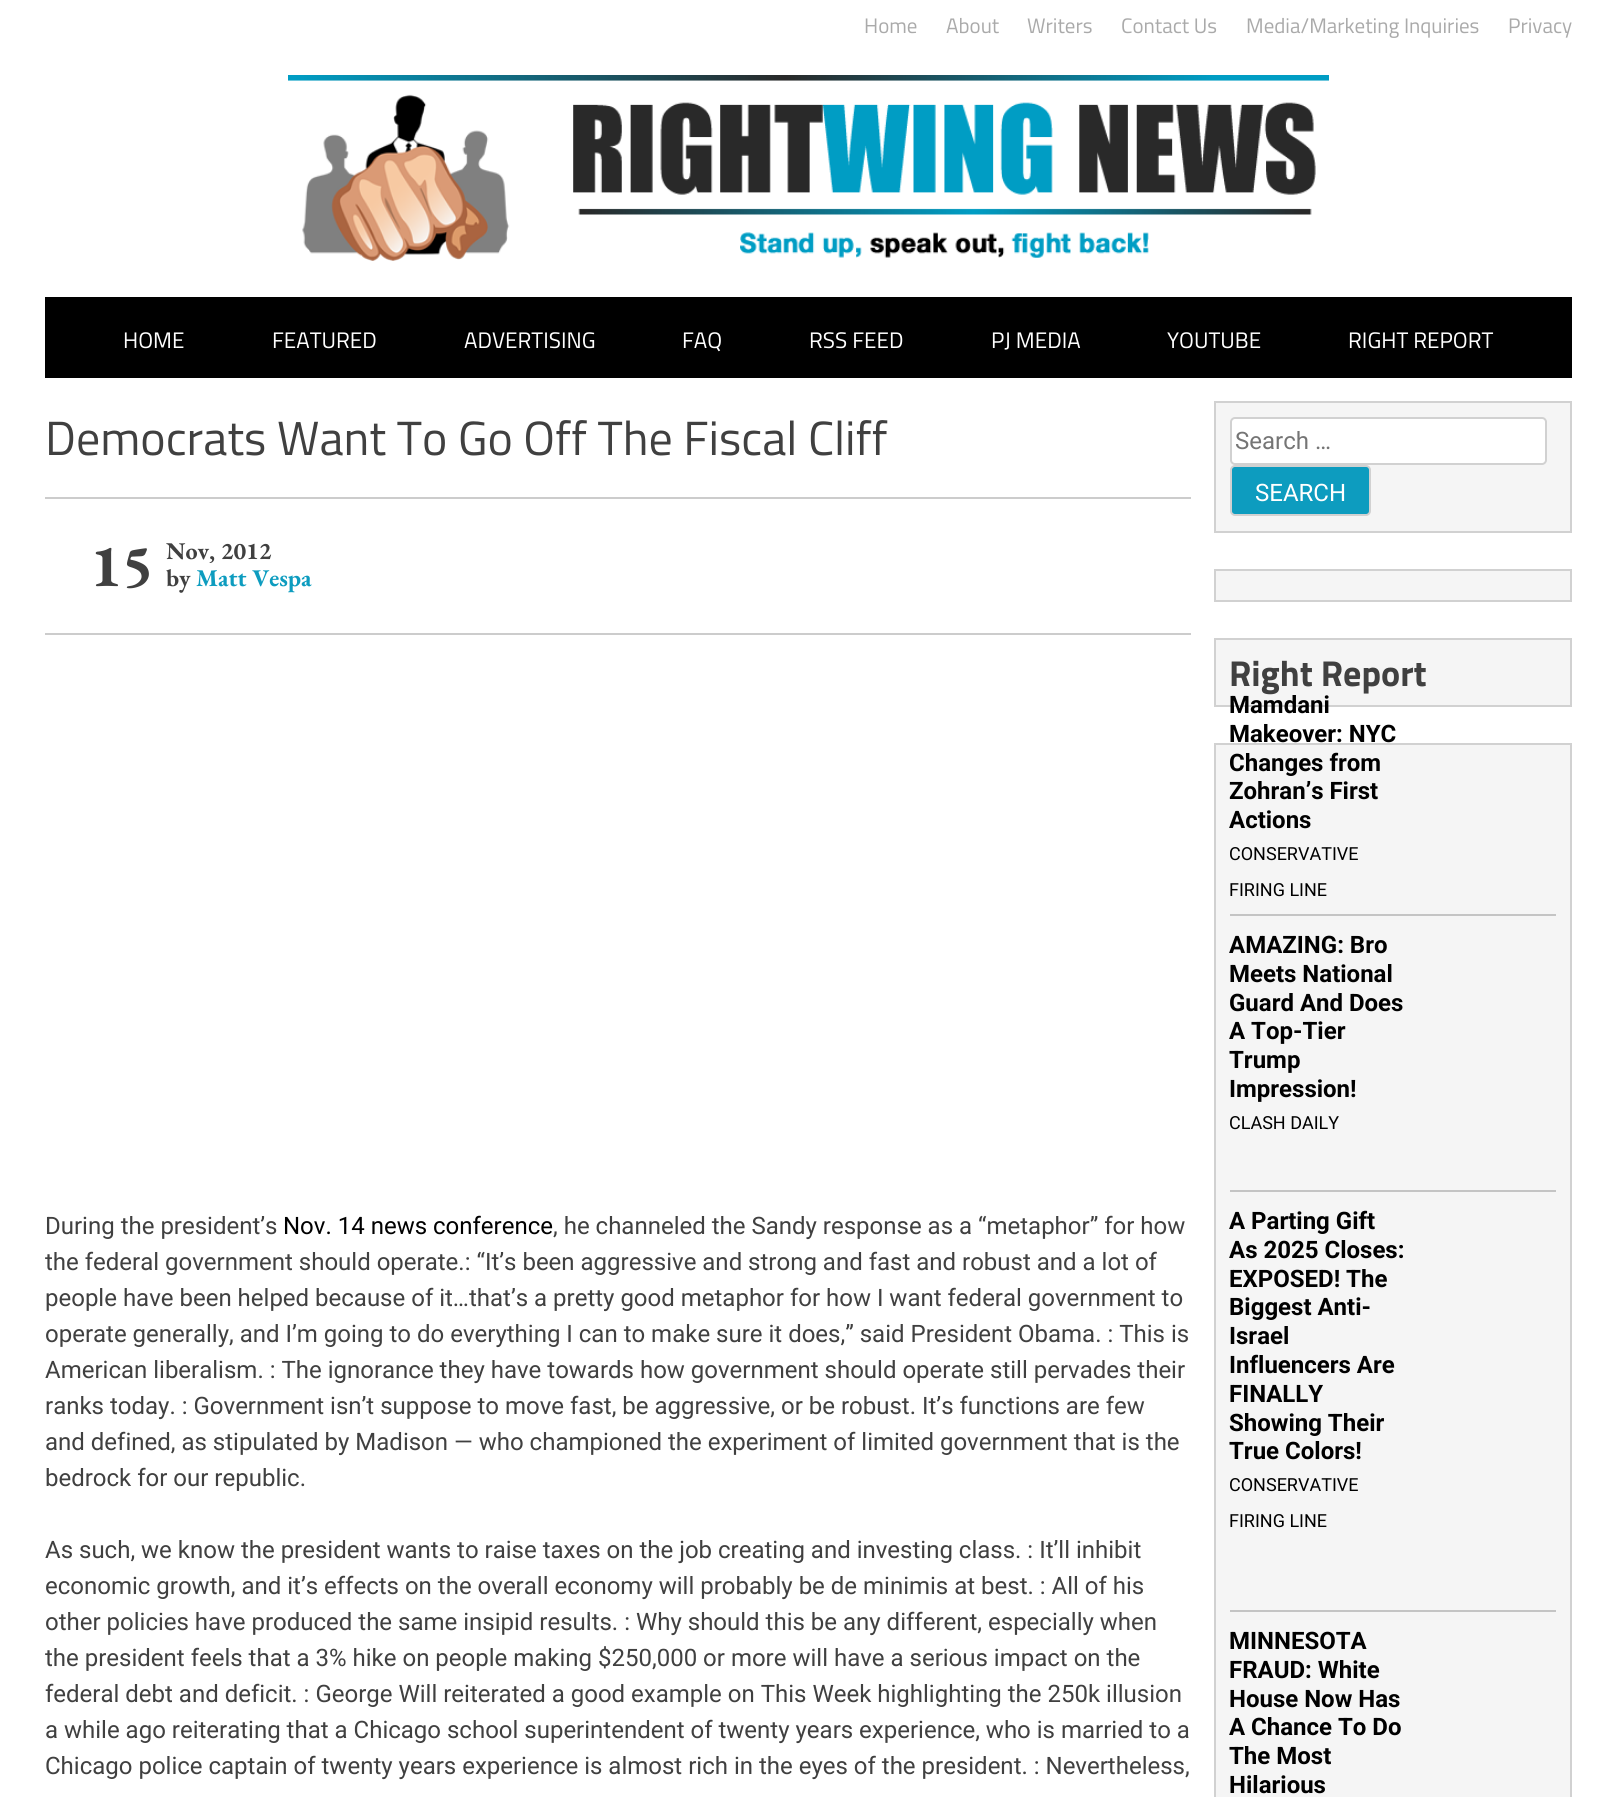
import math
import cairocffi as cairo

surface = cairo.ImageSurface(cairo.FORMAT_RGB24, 1617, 1797)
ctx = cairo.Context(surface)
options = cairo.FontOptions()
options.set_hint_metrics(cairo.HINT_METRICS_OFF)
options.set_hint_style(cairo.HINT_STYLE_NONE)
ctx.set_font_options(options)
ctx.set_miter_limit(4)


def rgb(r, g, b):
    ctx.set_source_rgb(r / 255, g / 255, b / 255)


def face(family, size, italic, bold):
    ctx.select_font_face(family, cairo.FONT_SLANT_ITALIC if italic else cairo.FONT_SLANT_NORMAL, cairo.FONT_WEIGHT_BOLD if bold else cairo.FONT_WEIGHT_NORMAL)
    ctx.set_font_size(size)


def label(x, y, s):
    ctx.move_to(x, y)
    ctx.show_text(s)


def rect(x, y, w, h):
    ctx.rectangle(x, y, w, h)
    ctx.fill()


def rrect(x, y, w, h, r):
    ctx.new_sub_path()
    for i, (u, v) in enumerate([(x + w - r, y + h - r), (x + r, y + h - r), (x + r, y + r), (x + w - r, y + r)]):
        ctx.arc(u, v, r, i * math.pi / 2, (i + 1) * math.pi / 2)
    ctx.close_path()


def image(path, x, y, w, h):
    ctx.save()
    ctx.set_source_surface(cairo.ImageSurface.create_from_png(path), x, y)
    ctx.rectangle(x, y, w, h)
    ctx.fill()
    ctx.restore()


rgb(255, 255, 255)
ctx.paint()
face('Titillium Web', 21, 0, 0)
rgb(170, 170, 170)
label(864, 33, 'Home')
label(946, 33, 'About')
label(1027, 33, 'Writers')
label(1121, 33, 'Contact Us')
label(1246, 33, 'Media/Marketing Inquiries')
label(1508, 33, 'Privacy')
image('image0.png', 288, 75, 1041, 186)
rgb(0, 0, 0)
rect(45, 297, 1527, 81)
face('Titillium Web', 22.5, 0, 0)
rgb(255, 255, 255)
label(123, 348, 'HOME')
label(272, 348, 'FEATURED')
label(464, 348, 'ADVERTISING')
label(682, 348, 'FAQ')
label(809, 348, 'RSS FEED')
label(991, 348, 'PJ MEDIA')
label(1167, 348, 'YOUTUBE')
label(1348, 348, 'RIGHT REPORT')
face('Titillium Web', 48, 0, 0)
rgb(64, 64, 64)
label(45, 455, 'Democrats Want To Go Off The Fiscal Cliff')
rgb(204, 204, 204)
rect(45, 497, 1146, 2)
rect(45, 633, 1146, 2)
face('EB Garamond', 60, 0, 1)
rgb(64, 64, 64)
label(90, 586, '15')
face('EB Garamond', 24, 0, 1)
label(166, 559, 'Nov, 2012')
label(166, 586, 'by')
rgb(13, 156, 191)
label(196, 586, 'Matt Vespa')
face('Roboto', 24, 0, 0)
rgb(64, 64, 64)
label(45, 1234, 'During the president’s')
rgb(0, 0, 0)
label(283, 1234, 'Nov. 14 news conference')
rgb(64, 64, 64)
label(553, 1234, ', he channeled the Sandy response as a “metaphor” for how')
label(45, 1270, 'the federal government should operate.: “It’s been aggressive and strong and fast and robust and a lot of')
label(45, 1306, 'people have been helped because of it…that’s a pretty good metaphor for how I want federal government to')
label(45, 1342, 'operate generally, and I’m going to do everything I can to make sure it does,” said President Obama. : This is')
label(45, 1378, 'American liberalism. : The ignorance they have towards how government should operate still pervades their')
label(45, 1414, 'ranks today. : Government isn’t suppose to move fast, be aggressive, or be robust. It’s functions are few')
label(45, 1450, 'and defined, as stipulated by Madison — who championed the experiment of limited government that is the')
label(45, 1486, 'bedrock for our republic.')
label(45, 1558, 'As such, we know the president wants to raise taxes on the job creating and investing class. : It’ll inhibit')
label(45, 1594, 'economic growth, and it’s effects on the overall economy will probably be de minimis at best. : All of his')
label(45, 1630, 'other policies have produced the same insipid results. : Why should this be any different, especially when')
label(45, 1666, 'the president feels that a 3% hike on people making $250,000 or more will have a serious impact on the')
label(45, 1702, 'federal debt and deficit. : George Will reiterated a good example on This Week highlighting the 250k illusion')
label(45, 1738, 'a while ago reiterating that a Chicago school superintendent of twenty years experience, who is married to a')
label(45, 1774, 'Chicago police captain of twenty years experience is almost rich in the eyes of the president. : Nevertheless,')
rgb(245, 245, 245)
ctx.rectangle(1215, 402, 356, 130)
ctx.fill_preserve()
rgb(209, 209, 209)
ctx.stroke()
rgb(255, 255, 255)
rrect(1231, 418, 315, 46, 4)
ctx.fill_preserve()
rgb(209, 209, 209)
ctx.stroke()
rgb(117, 117, 117)
label(1235, 449, 'Search …')
rgb(13, 156, 191)
rrect(1231, 466, 139, 49, 4)
ctx.fill_preserve()
rgb(209, 209, 209)
ctx.stroke()
rgb(255, 255, 255)
label(1255, 501, 'SEARCH')
rgb(245, 245, 245)
ctx.rectangle(1215, 570, 356, 31)
ctx.fill_preserve()
rgb(209, 209, 209)
ctx.stroke()
rgb(245, 245, 245)
ctx.rectangle(1215, 639, 356, 67)
ctx.fill_preserve()
rgb(209, 209, 209)
ctx.stroke()
face('Titillium Web', 36, 0, 1)
rgb(64, 64, 64)
label(1229, 686, 'Right Report')
rgb(245, 245, 245)
ctx.rectangle(1215, 744, 356, 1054)
ctx.fill_preserve()
rgb(209, 209, 209)
ctx.stroke()
rgb(196, 196, 196)
rect(1230, 914, 326, 2)
face('Roboto', 24, 0, 1)
rgb(0, 0, 0)
label(1229, 713, 'Mamdani')
label(1229, 742, 'Makeover: NYC')
label(1229, 771, 'Changes from')
label(1229, 799, 'Zohran’s First')
label(1229, 828, 'Actions')
face('Roboto', 18, 0, 0)
label(1229, 860, 'CONSERVATIVE')
label(1229, 896, 'FIRING LINE')
rgb(196, 196, 196)
rect(1230, 1190, 326, 2)
face('Roboto', 24, 0, 1)
rgb(0, 0, 0)
label(1229, 953, 'AMAZING: Bro')
label(1229, 982, 'Meets National')
label(1229, 1011, 'Guard And Does')
label(1229, 1039, 'A Top-Tier')
label(1229, 1068, 'Trump')
label(1229, 1097, 'Impression!')
face('Roboto', 18, 0, 0)
label(1229, 1129, 'CLASH DAILY')
rgb(196, 196, 196)
rect(1230, 1610, 326, 2)
face('Roboto', 24, 0, 1)
rgb(0, 0, 0)
label(1229, 1229, 'A Parting Gift')
label(1229, 1258, 'As 2025 Closes:')
label(1229, 1287, 'EXPOSED! The')
label(1229, 1315, 'Biggest Anti-')
label(1229, 1344, 'Israel')
label(1229, 1373, 'Influencers Are')
label(1229, 1402, 'FINALLY')
label(1229, 1431, 'Showing Their')
label(1229, 1459, 'True Colors!')
face('Roboto', 18, 0, 0)
label(1229, 1491, 'CONSERVATIVE')
label(1229, 1527, 'FIRING LINE')
face('Roboto', 24, 0, 1)
label(1229, 1649, 'MINNESOTA')
label(1229, 1678, 'FRAUD: White')
label(1229, 1707, 'House Now Has')
label(1229, 1735, 'A Chance To Do')
label(1229, 1764, 'The Most')
label(1229, 1793, 'Hilarious')
surface.write_to_png('render.png')
